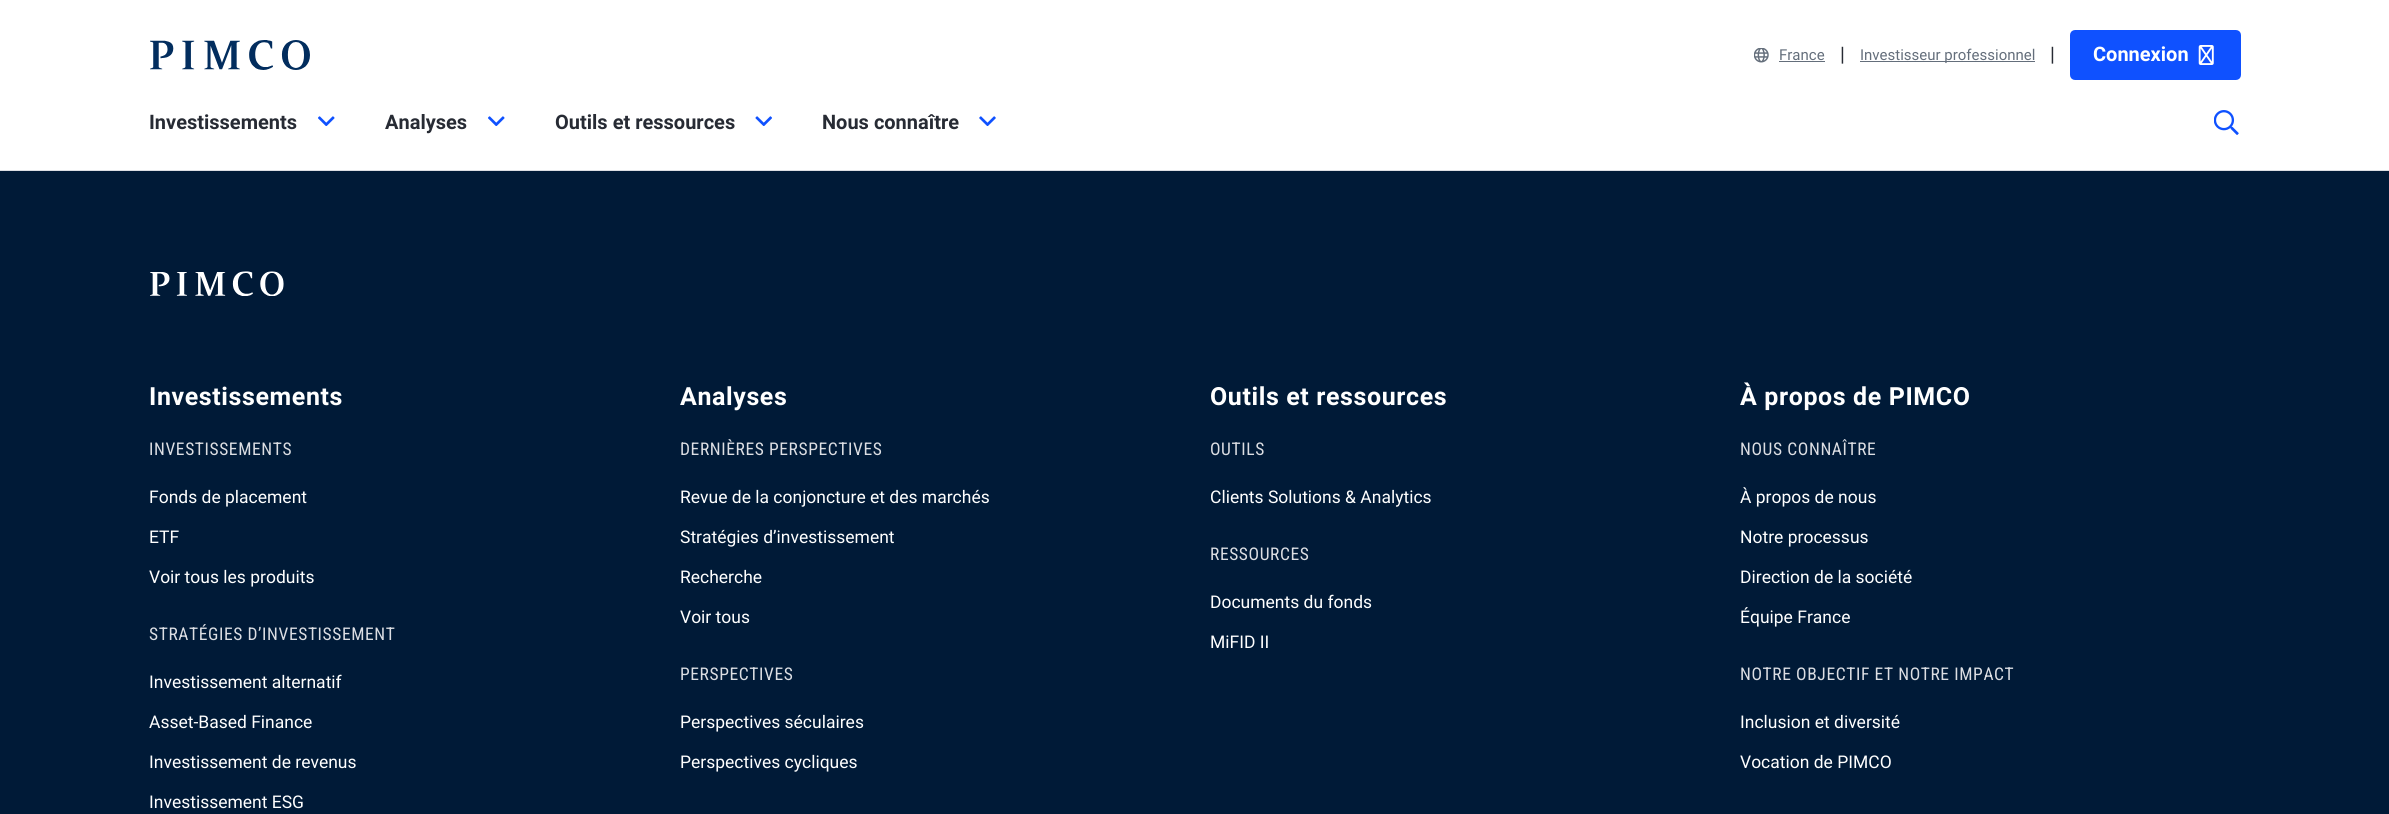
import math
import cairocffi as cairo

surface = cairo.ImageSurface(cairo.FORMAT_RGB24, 2389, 814)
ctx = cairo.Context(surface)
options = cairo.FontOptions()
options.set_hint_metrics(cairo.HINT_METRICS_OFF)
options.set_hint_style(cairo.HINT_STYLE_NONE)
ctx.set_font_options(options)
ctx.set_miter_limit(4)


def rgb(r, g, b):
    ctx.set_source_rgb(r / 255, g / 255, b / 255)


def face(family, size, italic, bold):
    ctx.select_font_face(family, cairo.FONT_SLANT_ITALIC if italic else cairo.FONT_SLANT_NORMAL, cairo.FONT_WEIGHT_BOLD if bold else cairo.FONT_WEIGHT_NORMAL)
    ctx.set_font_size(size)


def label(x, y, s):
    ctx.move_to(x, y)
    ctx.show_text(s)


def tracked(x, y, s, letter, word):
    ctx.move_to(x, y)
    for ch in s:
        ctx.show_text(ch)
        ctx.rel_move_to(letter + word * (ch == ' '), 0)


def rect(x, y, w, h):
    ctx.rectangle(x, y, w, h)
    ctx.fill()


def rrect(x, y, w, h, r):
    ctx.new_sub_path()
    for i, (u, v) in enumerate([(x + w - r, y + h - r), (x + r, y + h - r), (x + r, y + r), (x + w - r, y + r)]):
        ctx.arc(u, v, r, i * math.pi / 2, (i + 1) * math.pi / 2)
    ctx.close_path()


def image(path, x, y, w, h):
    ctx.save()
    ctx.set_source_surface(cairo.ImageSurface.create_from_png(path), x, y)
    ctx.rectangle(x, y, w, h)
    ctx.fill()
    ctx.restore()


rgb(255, 255, 255)
ctx.paint()
rgb(220, 222, 227)
rect(0, 170, 2389, 1)
image('image0.png', 150, 40, 160, 30)
image('image1.png', 1754, 48, 15, 15)
face('Roboto', 15, 0, 0)
rgb(100, 110, 123)
label(1779, 60, 'France')
rect(1779, 61, 46, 1)
face('Roboto', 20, 0, 0)
rgb(39, 43, 52)
label(1840, 61, '|')
rgb(100, 110, 123)
rect(1860, 61, 175, 1)
face('Roboto', 15, 0, 0)
label(1860, 60, 'Investisseur professionnel')
face('Roboto', 20, 0, 0)
rgb(39, 43, 52)
label(2050, 61, '|')
rgb(15, 81, 255)
rrect(2071.5, 31.5, 168, 47, 3.5)
ctx.fill_preserve()
ctx.set_line_width(3)
ctx.stroke()
face('Roboto', 20, 0, 1)
rgb(255, 255, 255)
label(2093, 61, 'Connexion')
image('image2.png', 2198, 45, 16, 20)
rgb(39, 43, 52)
label(149, 129, 'Investissements')
image('image3.png', 318, 116, 17, 10)
label(385, 129, 'Analyses')
image('image3.png', 488, 116, 17, 10)
label(555, 129, 'Outils et ressources')
image('image4.png', 755, 116, 17, 10)
label(822, 129, 'Nous connaître')
image('image5.png', 979, 116, 17, 10)
image('image6.png', 2214, 110, 25, 25)
rgb(0, 26, 55)
rect(0, 171, 2389, 643)
image('image7.png', 150, 271, 134, 25)
face('Roboto', 25, 0, 1)
rgb(255, 255, 255)
tracked(149, 405, 'Investissements', 0.6, 0)
face('Roboto Condensed', 17.5, 0, 0)
rgb(220, 222, 227)
tracked(149, 455, 'INVESTISSEMENTS', 0.6, 0)
face('Roboto', 17.5, 0, 0)
rgb(255, 255, 255)
label(149, 503, 'Fonds de placement')
label(149, 543, 'ETF')
label(149, 583, 'Voir tous les produits')
face('Roboto Condensed', 17.5, 0, 0)
rgb(220, 222, 227)
tracked(149, 640, 'STRATÉGIES D’INVESTISSEMENT', 0.6, 0)
face('Roboto', 17.5, 0, 0)
rgb(255, 255, 255)
label(149, 688, 'Investissement alternatif')
label(149, 728, 'Asset-Based Finance')
label(149, 768, 'Investissement de revenus')
label(149, 808, 'Investissement ESG')
face('Roboto', 25, 0, 1)
tracked(680, 405, 'Analyses', 0.6, 0)
face('Roboto Condensed', 17.5, 0, 0)
rgb(220, 222, 227)
tracked(680, 455, 'DERNIÈRES PERSPECTIVES', 0.6, 0)
face('Roboto', 17.5, 0, 0)
rgb(255, 255, 255)
label(680, 503, 'Revue de la conjoncture et des marchés')
label(680, 543, 'Stratégies d’investissement')
label(680, 583, 'Recherche')
label(680, 623, 'Voir tous')
face('Roboto Condensed', 17.5, 0, 0)
rgb(220, 222, 227)
tracked(680, 680, 'PERSPECTIVES', 0.6, 0)
face('Roboto', 17.5, 0, 0)
rgb(255, 255, 255)
label(680, 728, 'Perspectives séculaires')
label(680, 768, 'Perspectives cycliques')
face('Roboto', 25, 0, 1)
tracked(1210, 405, 'Outils et ressources', 0.6, 0)
face('Roboto Condensed', 17.5, 0, 0)
rgb(220, 222, 227)
tracked(1210, 455, 'OUTILS', 0.6, 0)
face('Roboto', 17.5, 0, 0)
rgb(255, 255, 255)
label(1210, 503, 'Clients Solutions & Analytics')
face('Roboto Condensed', 17.5, 0, 0)
rgb(220, 222, 227)
tracked(1210, 560, 'RESSOURCES', 0.6, 0)
face('Roboto', 17.5, 0, 0)
rgb(255, 255, 255)
label(1210, 608, 'Documents du fonds')
label(1210, 648, 'MiFID II')
face('Roboto', 25, 0, 1)
tracked(1740, 405, 'À propos de PIMCO', 0.6, 0)
face('Roboto Condensed', 17.5, 0, 0)
rgb(220, 222, 227)
tracked(1740, 455, 'NOUS CONNAÎTRE', 0.6, 0)
face('Roboto', 17.5, 0, 0)
rgb(255, 255, 255)
label(1740, 503, 'À propos de nous')
label(1740, 543, 'Notre processus')
label(1740, 583, 'Direction de la société')
label(1740, 623, 'Équipe France')
face('Roboto Condensed', 17.5, 0, 0)
rgb(220, 222, 227)
tracked(1740, 680, 'NOTRE OBJECTIF ET NOTRE IMPACT', 0.6, 0)
face('Roboto', 17.5, 0, 0)
rgb(255, 255, 255)
label(1740, 728, 'Inclusion et diversité')
label(1740, 768, 'Vocation de PIMCO')
surface.write_to_png('render.png')
